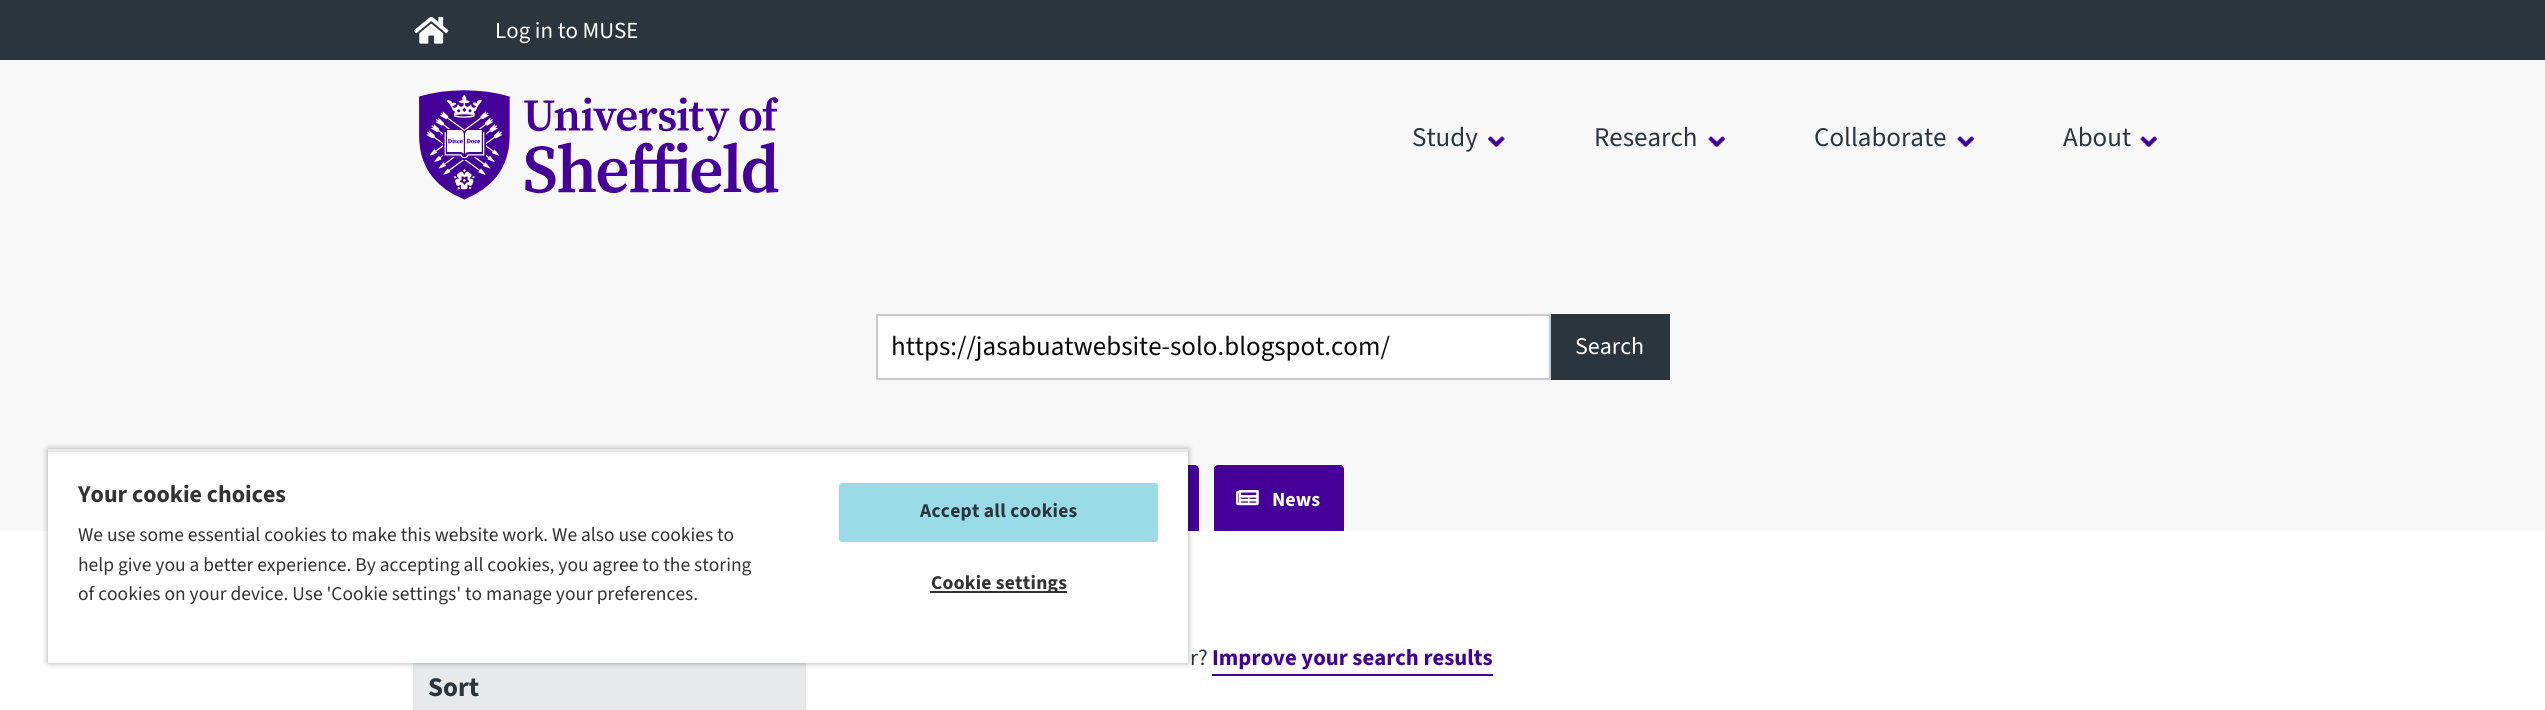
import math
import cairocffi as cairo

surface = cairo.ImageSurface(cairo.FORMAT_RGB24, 2545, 710)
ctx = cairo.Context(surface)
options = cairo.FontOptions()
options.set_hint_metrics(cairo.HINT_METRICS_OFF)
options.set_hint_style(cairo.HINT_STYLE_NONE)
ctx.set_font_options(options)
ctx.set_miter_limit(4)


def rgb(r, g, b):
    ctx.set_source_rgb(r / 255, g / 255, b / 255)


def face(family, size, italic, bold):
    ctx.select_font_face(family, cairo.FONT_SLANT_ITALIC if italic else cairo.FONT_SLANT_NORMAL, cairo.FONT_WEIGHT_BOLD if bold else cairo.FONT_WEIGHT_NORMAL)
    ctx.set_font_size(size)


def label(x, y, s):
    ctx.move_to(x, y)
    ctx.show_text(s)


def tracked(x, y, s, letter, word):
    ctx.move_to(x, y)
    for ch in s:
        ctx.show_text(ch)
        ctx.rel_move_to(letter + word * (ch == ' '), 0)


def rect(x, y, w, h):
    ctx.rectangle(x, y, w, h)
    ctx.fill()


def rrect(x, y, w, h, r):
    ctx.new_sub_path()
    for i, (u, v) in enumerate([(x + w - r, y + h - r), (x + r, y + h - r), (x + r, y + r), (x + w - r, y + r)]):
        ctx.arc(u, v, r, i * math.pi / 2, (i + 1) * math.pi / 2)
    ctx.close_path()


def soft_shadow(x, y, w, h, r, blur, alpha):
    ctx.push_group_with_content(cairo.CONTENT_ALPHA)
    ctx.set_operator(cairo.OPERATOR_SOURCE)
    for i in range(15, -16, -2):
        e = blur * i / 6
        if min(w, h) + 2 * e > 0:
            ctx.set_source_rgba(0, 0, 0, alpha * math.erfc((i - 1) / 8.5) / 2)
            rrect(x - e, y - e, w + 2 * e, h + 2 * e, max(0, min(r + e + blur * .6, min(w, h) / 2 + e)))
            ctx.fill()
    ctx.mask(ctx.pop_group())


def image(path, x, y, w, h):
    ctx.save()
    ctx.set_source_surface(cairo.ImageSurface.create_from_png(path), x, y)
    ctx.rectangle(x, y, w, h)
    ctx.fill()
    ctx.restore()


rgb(248, 248, 249)
ctx.paint()
rgb(43, 53, 62)
rect(0, 0, 2545, 60)
image('image0.png', 414, 16, 35, 28)
face('Source Sans 3 ExtraLight', 23, 0, 0)
rgb(255, 255, 255)
label(495, 38, 'Log in to MUSE')
image('image1.png', 419, 90, 360, 110)
image('image2.png', 1488, 136, 17, 11)
face('Source Sans 3 ExtraLight', 27, 0, 0)
rgb(43, 53, 62)
label(1412, 146, 'Study')
image('image3.png', 1708, 136, 17, 11)
label(1594, 146, 'Research')
image('image3.png', 1957, 136, 17, 11)
label(1814, 146, 'Collaborate')
image('image3.png', 2140, 136, 17, 11)
label(2063, 146, 'About')
rgb(254, 254, 254)
ctx.rectangle(877, 315, 673, 64)
ctx.fill_preserve()
rgb(202, 202, 202)
ctx.stroke()
rgb(10, 10, 10)
label(891, 355, 'https://jasabuatwebsite-solo.blogspot.com/')
rgb(43, 53, 62)
rect(1551, 314, 119, 66)
face('Source Sans 3 ExtraLight', 24, 0, 0)
rgb(255, 255, 255)
label(1575, 354, 'Search')
rgb(68, 0, 153)
ctx.new_path()
ctx.move_to(1049, 465)
ctx.line_to(1194, 465)
ctx.curve_to(1197, 465, 1199, 467, 1199, 470)
ctx.line_to(1199, 531)
ctx.line_to(1044, 531)
ctx.line_to(1044, 470)
ctx.curve_to(1044, 467, 1046, 465, 1049, 465)
ctx.close_path()
ctx.fill()
ctx.set_fill_rule(cairo.FILL_RULE_EVEN_ODD)
ctx.new_path()
ctx.move_to(1048, 465)
ctx.line_to(1194, 465)
ctx.curve_to(1196, 465, 1198, 467, 1198, 470)
ctx.line_to(1198, 531)
ctx.line_to(1044, 531)
ctx.line_to(1044, 470)
ctx.curve_to(1044, 467, 1046, 465, 1048, 465)
ctx.close_path()
ctx.move_to(1048, 466)
ctx.line_to(1194, 466)
ctx.curve_to(1196, 466, 1197, 468, 1197, 470)
ctx.line_to(1197, 531)
ctx.line_to(1046, 531)
ctx.line_to(1046, 470)
ctx.curve_to(1046, 468, 1047, 466, 1048, 466)
ctx.close_path()
ctx.fill()
ctx.new_path()
ctx.move_to(1219, 465)
ctx.line_to(1339, 465)
ctx.curve_to(1342, 465, 1344, 467, 1344, 470)
ctx.line_to(1344, 531)
ctx.line_to(1214, 531)
ctx.line_to(1214, 470)
ctx.curve_to(1214, 467, 1216, 465, 1219, 465)
ctx.close_path()
ctx.fill()
ctx.new_path()
ctx.move_to(1218, 465)
ctx.line_to(1340, 465)
ctx.curve_to(1342, 465, 1344, 467, 1344, 470)
ctx.line_to(1344, 531)
ctx.line_to(1214, 531)
ctx.line_to(1214, 470)
ctx.curve_to(1214, 467, 1216, 465, 1218, 465)
ctx.close_path()
ctx.move_to(1218, 466)
ctx.line_to(1340, 466)
ctx.curve_to(1341, 466, 1342, 468, 1342, 470)
ctx.line_to(1342, 531)
ctx.line_to(1215, 531)
ctx.line_to(1215, 470)
ctx.curve_to(1215, 468, 1216, 466, 1218, 466)
ctx.close_path()
ctx.fill()
image('image4.png', 1236, 490, 23, 16)
face('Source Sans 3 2 ExtraLight', 20, 0, 0)
rgb(255, 255, 255)
label(1272, 506, 'News')
rect(0, 531, 2545, 179)
face('Source Sans 3 ExtraLight', 22.75, 0, 0)
rgb(43, 53, 62)
label(1190, 665, 'r?')
face('Source Sans 3 2 ExtraLight', 22.75, 0, 0)
rgb(68, 0, 153)
label(1212, 665, 'Improve your search results')
rect(1212, 674, 281, 2)
rgb(231, 233, 234)
rect(413, 663, 393, 47)
face('Source Sans 3 2 ExtraLight', 27, 0, 0)
rgb(43, 53, 62)
label(428, 696, 'Sort')
ctx.save()
ctx.new_path()
ctx.move_to(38, 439)
ctx.line_to(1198, 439)
ctx.line_to(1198, 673)
ctx.line_to(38, 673)
ctx.close_path()
ctx.move_to(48, 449)
ctx.line_to(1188, 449)
ctx.line_to(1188, 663)
ctx.line_to(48, 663)
ctx.close_path()
ctx.clip()
rgb(0, 0, 0)
soft_shadow(48, 449, 1140, 214, 0, 3, 0.35)
ctx.restore()
ctx.save()
ctx.set_fill_rule(cairo.FILL_RULE_WINDING)
ctx.rectangle(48, 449, 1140, 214)
ctx.clip()
rgb(0, 0, 0)
soft_shadow(48, 452, 1140, 211, 0, 3, 0.2)
ctx.restore()
rgb(255, 255, 255)
rect(48, 452, 1140, 211)
face('Source Sans 3 2 ExtraLight', 24, 0, 0)
rgb(51, 51, 51)
label(78, 502, 'Your cookie choices')
face('Source Sans 3 ExtraLight', 19.5, 0, 0)
label(78, 541, 'We use some essential cookies to make this website work. We also use cookies to')
label(78, 571, 'help give you a better experience. By accepting all cookies, you agree to the storing')
label(78, 600, 'of cookies on your device. Use \'Cookie settings\' to manage your preferences.')
rgb(154, 219, 232)
rrect(840, 484, 317, 57, 2)
ctx.fill_preserve()
ctx.stroke()
face('Source Sans 3 2 ExtraLight', 19.5, 0, 0)
rgb(43, 53, 62)
tracked(920, 517, 'Accept all cookies', 0.25, 0)
rgb(51, 51, 51)
rect(930, 591, 137, 2)
tracked(931, 589, 'Cookie settings', 0.25, 0)
surface.write_to_png('render.png')
